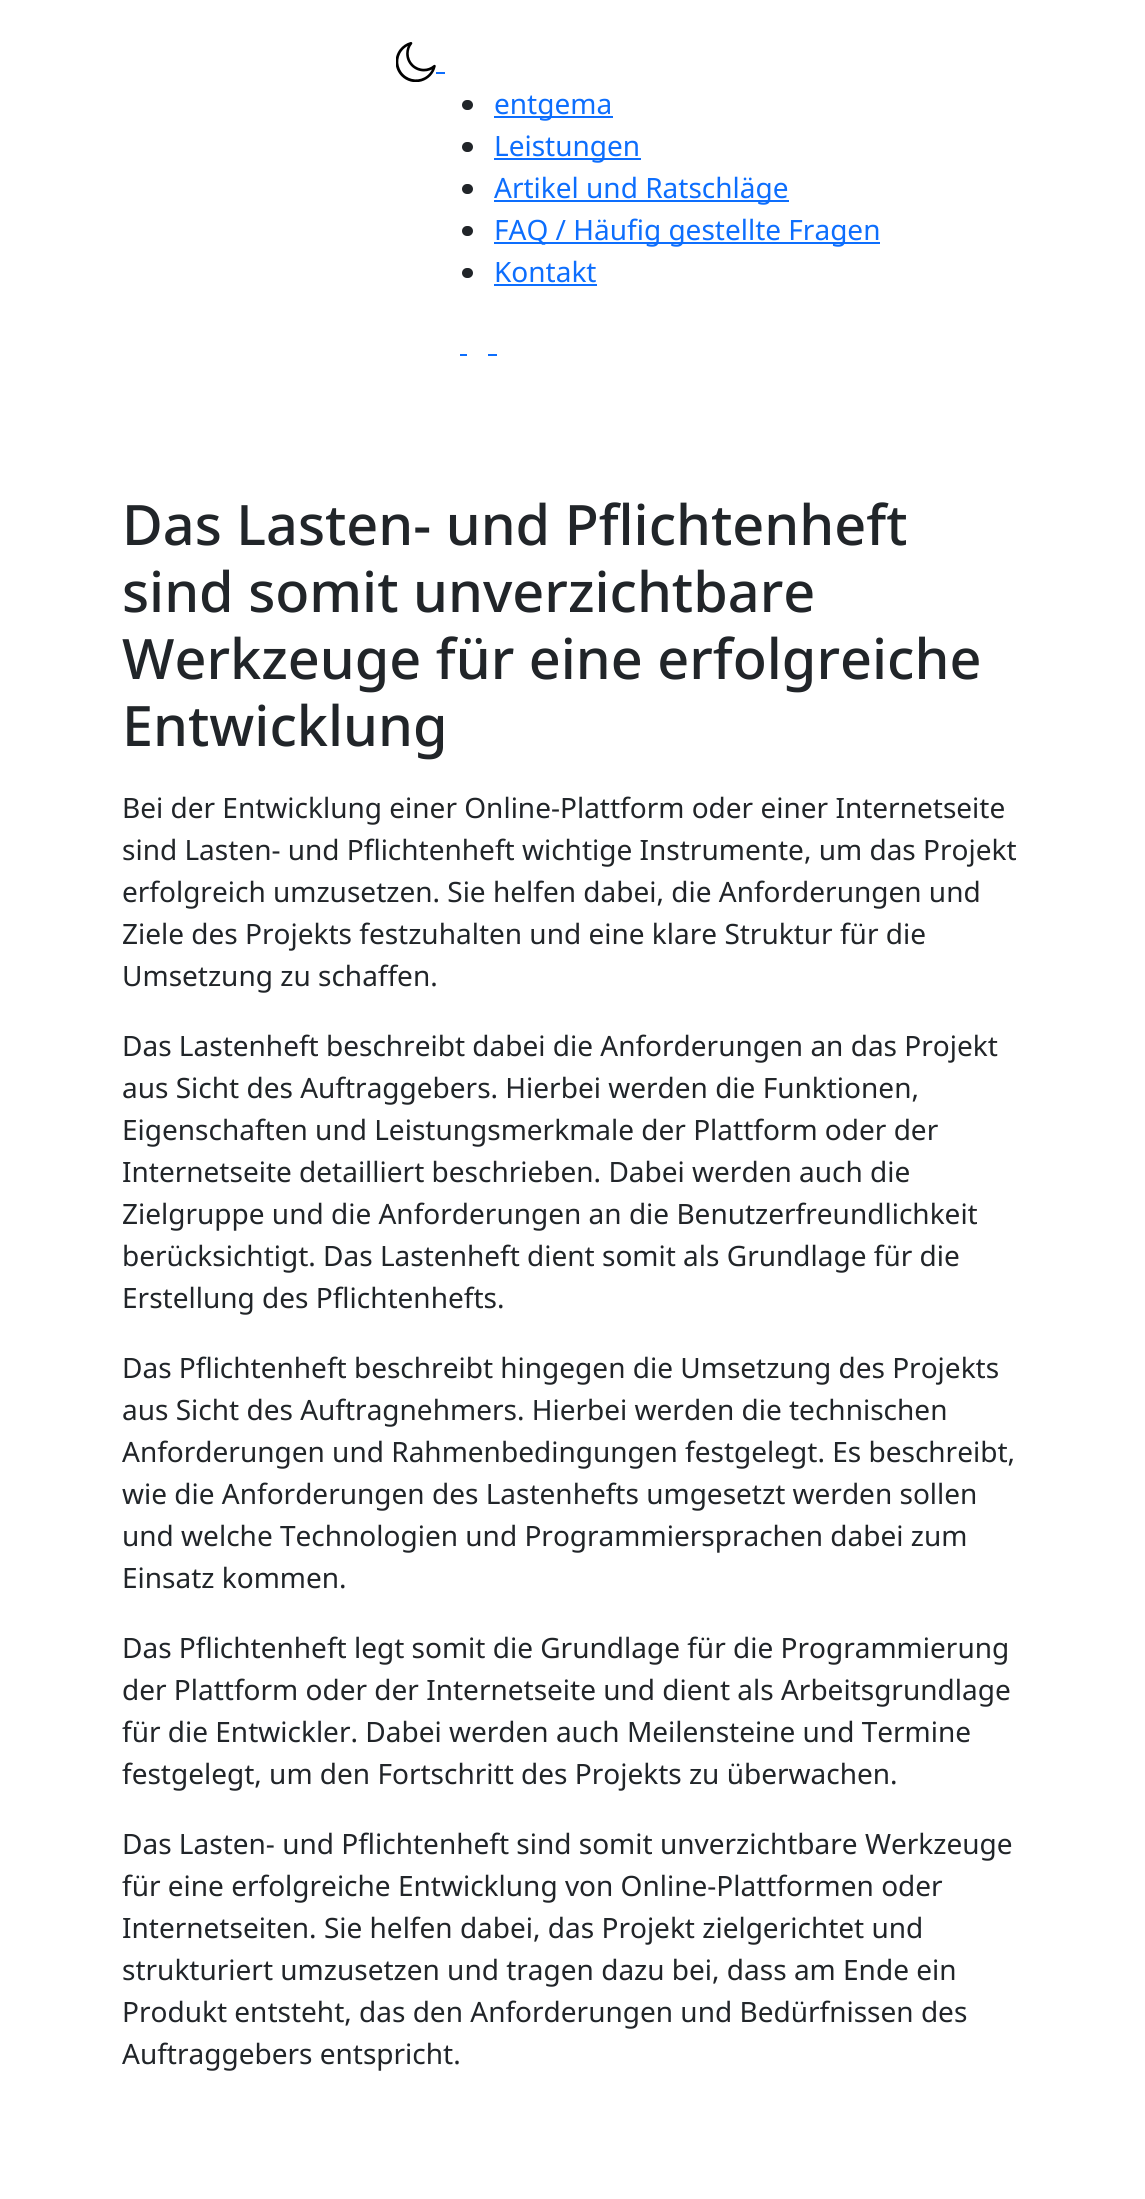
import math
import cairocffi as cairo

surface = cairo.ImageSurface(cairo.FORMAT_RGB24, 1145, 2199)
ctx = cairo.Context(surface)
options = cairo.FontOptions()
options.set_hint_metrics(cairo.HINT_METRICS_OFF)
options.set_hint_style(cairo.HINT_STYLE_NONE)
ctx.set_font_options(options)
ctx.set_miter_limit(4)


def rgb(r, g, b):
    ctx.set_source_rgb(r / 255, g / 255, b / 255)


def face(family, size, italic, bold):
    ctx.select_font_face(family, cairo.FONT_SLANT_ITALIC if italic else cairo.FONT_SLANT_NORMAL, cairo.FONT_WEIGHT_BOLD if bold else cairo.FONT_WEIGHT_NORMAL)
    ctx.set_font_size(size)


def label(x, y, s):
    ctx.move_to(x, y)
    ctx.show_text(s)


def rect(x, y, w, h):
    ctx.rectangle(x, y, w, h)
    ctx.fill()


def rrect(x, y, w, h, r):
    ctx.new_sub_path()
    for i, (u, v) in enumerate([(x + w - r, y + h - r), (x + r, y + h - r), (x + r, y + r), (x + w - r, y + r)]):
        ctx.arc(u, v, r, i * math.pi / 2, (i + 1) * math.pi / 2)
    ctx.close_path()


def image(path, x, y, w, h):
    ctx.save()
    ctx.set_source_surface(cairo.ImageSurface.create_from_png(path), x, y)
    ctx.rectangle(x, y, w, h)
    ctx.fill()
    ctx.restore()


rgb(255, 255, 255)
ctx.paint()
image('image0.png', 396, 42, 40, 40)
rgb(13, 110, 253)
rect(436, 72, 9, 2)
rgb(33, 37, 41)
rrect(462, 100, 11, 10, 5)
ctx.fill()
rgb(13, 110, 253)
rect(494, 116, 119, 2)
face('Noto Sans', 28, 0, 0)
label(494, 114, 'entgema')
rgb(33, 37, 41)
rrect(462, 142, 11, 10, 5)
ctx.fill()
rgb(13, 110, 253)
rect(494, 158, 147, 2)
label(494, 156, 'Leistungen')
rgb(33, 37, 41)
rrect(462, 184, 11, 10, 5)
ctx.fill()
rgb(13, 110, 253)
rect(494, 200, 295, 2)
label(494, 198, 'Artikel und Ratschläge')
rgb(33, 37, 41)
rrect(462, 226, 11, 10, 5)
ctx.fill()
rgb(13, 110, 253)
rect(494, 242, 386, 2)
label(494, 240, 'FAQ / Häufig gestellte Fragen')
rgb(33, 37, 41)
rrect(462, 268, 11, 10, 5)
ctx.fill()
rgb(13, 110, 253)
label(494, 282, 'Kontakt')
rect(494, 284, 103, 2)
rect(460, 354, 7, 2)
rect(488, 354, 9, 2)
face('Noto Sans Medium', 55.75, 0, 0)
rgb(33, 37, 41)
label(122, 545, 'Das Lasten- und Pflichtenheft')
label(122, 612, 'sind somit unverzichtbare')
label(122, 679, 'Werkzeuge für eine erfolgreiche')
label(122, 746, 'Entwicklung')
face('Noto Sans', 28, 0, 0)
label(122, 818, 'Bei der Entwicklung einer Online-Plattform oder einer Internetseite')
label(122, 860, 'sind Lasten- und Pflichtenheft wichtige Instrumente, um das Projekt')
label(122, 902, 'erfolgreich umzusetzen. Sie helfen dabei, die Anforderungen und')
label(122, 944, 'Ziele des Projekts festzuhalten und eine klare Struktur für die')
label(122, 986, 'Umsetzung zu schaffen.')
label(122, 1056, 'Das Lastenheft beschreibt dabei die Anforderungen an das Projekt')
label(122, 1098, 'aus Sicht des Auftraggebers. Hierbei werden die Funktionen,')
label(122, 1140, 'Eigenschaften und Leistungsmerkmale der Plattform oder der')
label(122, 1182, 'Internetseite detailliert beschrieben. Dabei werden auch die')
label(122, 1224, 'Zielgruppe und die Anforderungen an die Benutzerfreundlichkeit')
label(122, 1266, 'berücksichtigt. Das Lastenheft dient somit als Grundlage für die')
label(122, 1308, 'Erstellung des Pflichtenhefts.')
label(122, 1378, 'Das Pflichtenheft beschreibt hingegen die Umsetzung des Projekts')
label(122, 1420, 'aus Sicht des Auftragnehmers. Hierbei werden die technischen')
label(122, 1462, 'Anforderungen und Rahmenbedingungen festgelegt. Es beschreibt,')
label(122, 1504, 'wie die Anforderungen des Lastenhefts umgesetzt werden sollen')
label(122, 1546, 'und welche Technologien und Programmiersprachen dabei zum')
label(122, 1588, 'Einsatz kommen.')
label(122, 1658, 'Das Pflichtenheft legt somit die Grundlage für die Programmierung')
label(122, 1700, 'der Plattform oder der Internetseite und dient als Arbeitsgrundlage')
label(122, 1742, 'für die Entwickler. Dabei werden auch Meilensteine und Termine')
label(122, 1784, 'festgelegt, um den Fortschritt des Projekts zu überwachen.')
label(122, 1854, 'Das Lasten- und Pflichtenheft sind somit unverzichtbare Werkzeuge')
label(122, 1896, 'für eine erfolgreiche Entwicklung von Online-Plattformen oder')
label(122, 1938, 'Internetseiten. Sie helfen dabei, das Projekt zielgerichtet und')
label(122, 1980, 'strukturiert umzusetzen und tragen dazu bei, dass am Ende ein')
label(122, 2022, 'Produkt entsteht, das den Anforderungen und Bedürfnissen des')
label(122, 2064, 'Auftraggebers entspricht.')
surface.write_to_png('render.png')
